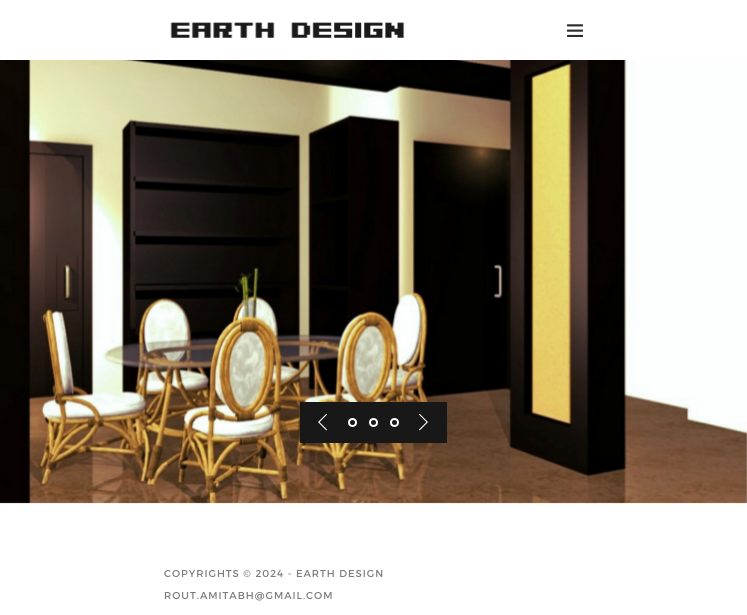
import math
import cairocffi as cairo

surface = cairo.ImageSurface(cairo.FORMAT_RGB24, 747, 615)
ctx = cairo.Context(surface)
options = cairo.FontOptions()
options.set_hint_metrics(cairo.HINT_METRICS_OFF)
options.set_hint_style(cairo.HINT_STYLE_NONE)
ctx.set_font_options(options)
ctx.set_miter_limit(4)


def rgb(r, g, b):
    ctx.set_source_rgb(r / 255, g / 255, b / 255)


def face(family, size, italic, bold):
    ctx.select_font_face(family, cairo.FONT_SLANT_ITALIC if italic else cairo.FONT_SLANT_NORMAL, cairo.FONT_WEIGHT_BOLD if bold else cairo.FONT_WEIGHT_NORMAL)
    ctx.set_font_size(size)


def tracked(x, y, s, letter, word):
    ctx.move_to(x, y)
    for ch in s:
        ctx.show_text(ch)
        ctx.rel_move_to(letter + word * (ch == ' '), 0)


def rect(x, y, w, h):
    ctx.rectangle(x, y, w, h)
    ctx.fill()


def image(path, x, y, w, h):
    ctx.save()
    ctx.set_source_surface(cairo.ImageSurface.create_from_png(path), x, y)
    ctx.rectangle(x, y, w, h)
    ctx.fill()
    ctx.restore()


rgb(255, 255, 255)
ctx.paint()
image('image0.png', 170, 22, 235, 16)
image('image1.png', 567, 24, 16, 13)
image('image2.png', 0, 60, 747, 444)
rgb(24, 24, 24)
rect(300, 402, 7, 41)
rect(343, 402, 61, 41)
ctx.arc(352.5, 422.5, 3.5, 0, 2 * math.pi)
rgb(255, 255, 255)
ctx.stroke()
rgb(24, 24, 24)
rect(441, 402, 6, 41)
ctx.arc(373.5, 422.5, 3.5, 0, 2 * math.pi)
rgb(255, 255, 255)
ctx.stroke()
ctx.arc(394.5, 422.5, 3.5, 0, 2 * math.pi)
ctx.stroke()
rgb(24, 24, 24)
ctx.new_path()
ctx.move_to(307, 402)
ctx.line_to(343, 402)
ctx.line_to(343, 443)
ctx.line_to(307, 443)
ctx.curve_to(305.5, 443, 304, 441.5, 304, 440)
ctx.line_to(304, 405)
ctx.curve_to(304, 403.5, 305.5, 402, 307, 402)
ctx.close_path()
ctx.fill()
image('image3.png', 318, 413, 9, 18)
ctx.new_path()
ctx.move_to(404, 402)
ctx.line_to(441, 402)
ctx.curve_to(442.5, 402, 444, 403.5, 444, 405)
ctx.line_to(444, 440)
ctx.curve_to(444, 441.5, 442.5, 443, 441, 443)
ctx.line_to(404, 443)
ctx.close_path()
ctx.fill()
image('image4.png', 419, 413, 9, 18)
face('Montserrat', 10, 0, 0)
rgb(124, 124, 124)
tracked(164, 577, 'COPYRIGHTS © 2024 - EARTH DESIGN', 1, 0)
tracked(164, 599, 'ROUT.AMITABH@GMAIL.COM', 1, 0)
surface.write_to_png('render.png')
